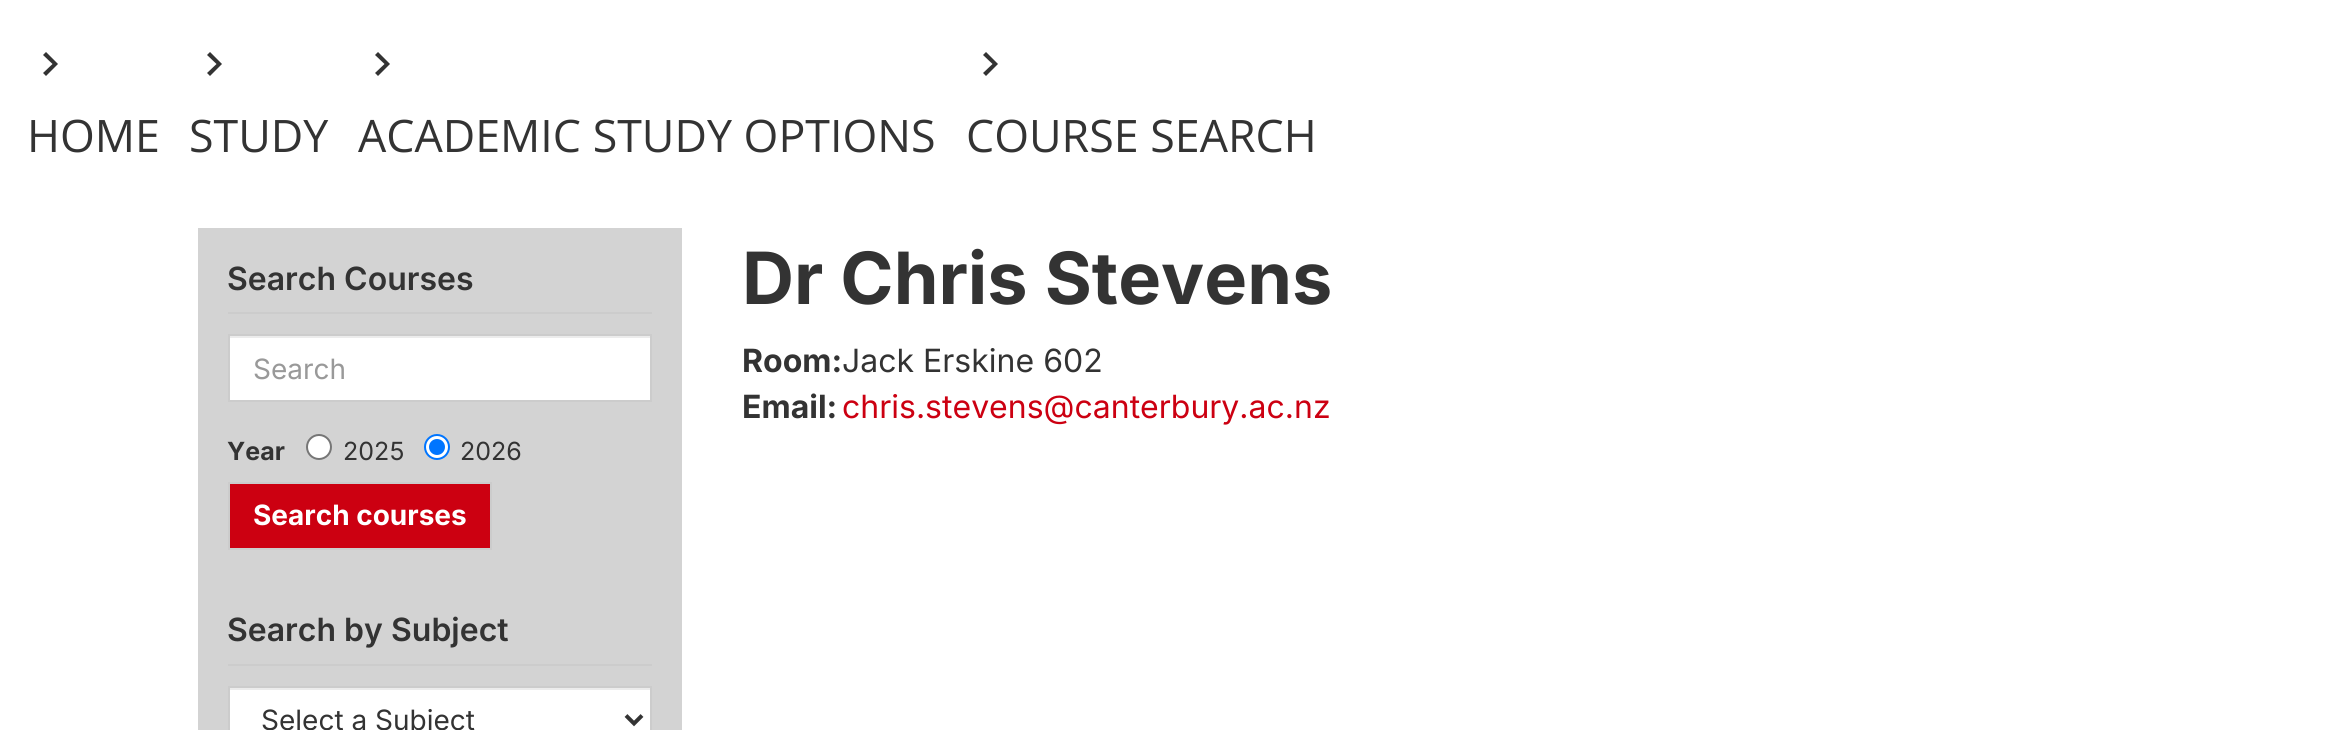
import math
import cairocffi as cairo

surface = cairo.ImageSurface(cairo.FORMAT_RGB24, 2333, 730)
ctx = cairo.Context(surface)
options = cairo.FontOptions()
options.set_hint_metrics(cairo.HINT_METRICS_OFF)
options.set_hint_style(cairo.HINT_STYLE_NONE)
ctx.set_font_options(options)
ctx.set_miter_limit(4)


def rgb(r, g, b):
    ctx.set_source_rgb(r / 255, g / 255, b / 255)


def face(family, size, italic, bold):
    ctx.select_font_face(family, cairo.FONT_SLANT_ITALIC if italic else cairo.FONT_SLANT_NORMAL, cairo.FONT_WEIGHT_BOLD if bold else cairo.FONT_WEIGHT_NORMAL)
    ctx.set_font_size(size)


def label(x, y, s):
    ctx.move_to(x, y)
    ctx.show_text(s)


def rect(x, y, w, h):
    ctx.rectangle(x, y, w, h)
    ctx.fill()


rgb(255, 255, 255)
ctx.paint()
rgb(51, 51, 51)
ctx.new_path()
ctx.move_to(43, 73)
ctx.line_to(52.5, 64)
ctx.line_to(43, 55)
ctx.line_to(46, 52)
ctx.line_to(58, 64)
ctx.line_to(46, 76)
ctx.close_path()
ctx.fill()
face('Open Sans', 44.75, 0, 0)
label(27, 152, 'HOME')
ctx.new_path()
ctx.move_to(207, 73)
ctx.line_to(216.5, 64)
ctx.line_to(207, 55)
ctx.line_to(210, 52)
ctx.line_to(222, 64)
ctx.line_to(210, 76)
ctx.close_path()
ctx.fill()
label(189, 152, 'STUDY')
ctx.new_path()
ctx.move_to(375, 73)
ctx.line_to(384.5, 64)
ctx.line_to(375, 55)
ctx.line_to(378, 52)
ctx.line_to(390, 64)
ctx.line_to(378, 76)
ctx.close_path()
ctx.fill()
label(358, 152, 'ACADEMIC STUDY OPTIONS')
ctx.new_path()
ctx.move_to(983, 73)
ctx.line_to(992.5, 64)
ctx.line_to(983, 55)
ctx.line_to(986, 52)
ctx.line_to(998, 64)
ctx.line_to(986, 76)
ctx.close_path()
ctx.fill()
label(966, 152, 'COURSE SEARCH')
rgb(211, 211, 211)
rect(198, 228, 484, 502)
rgb(204, 204, 204)
rect(228, 312, 424, 2)
face('Inter SemiBold', 32, 0, 0)
rgb(51, 51, 51)
label(227, 290, 'Search Courses')
rgb(255, 255, 255)
rect(230, 338, 420, 62)
rgb(236, 236, 236)
rect(230, 336, 420, 2)
ctx.rectangle(229, 335, 422, 66)
rgb(204, 204, 204)
ctx.stroke()
face('Inter', 28, 0, 0)
rgb(153, 153, 153)
label(253, 379, 'Search')
face('Inter', 25, 0, 1)
rgb(51, 51, 51)
label(227, 460, 'Year')
rgb(255, 255, 255)
ctx.new_path()
ctx.arc(319, 447, 12, 0, 2 * math.pi)
ctx.fill_preserve()
rgb(118, 118, 118)
ctx.stroke()
face('Inter', 25, 0, 0)
rgb(51, 51, 51)
label(343, 460, '2025')
rgb(255, 255, 255)
ctx.new_path()
ctx.arc(437, 447, 12, 0, 2 * math.pi)
ctx.fill_preserve()
rgb(0, 117, 255)
ctx.stroke()
ctx.arc(437, 447, 8, 0, 2 * math.pi)
ctx.fill()
rgb(51, 51, 51)
label(460, 460, '2026')
rgb(204, 0, 17)
ctx.rectangle(229, 483, 262, 66)
ctx.fill_preserve()
rgb(204, 204, 204)
ctx.stroke()
face('Inter', 28, 0, 1)
rgb(255, 255, 255)
label(253, 525, 'Search courses')
rgb(204, 204, 204)
rect(228, 664, 424, 2)
face('Inter SemiBold', 32, 0, 0)
rgb(51, 51, 51)
label(227, 641, 'Search by Subject')
rgb(255, 255, 255)
rect(230, 690, 420, 40)
rgb(236, 236, 236)
rect(230, 688, 420, 2)
ctx.rectangle(229, 687, 422, 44)
rgb(204, 204, 204)
ctx.stroke()
ctx.new_path()
ctx.move_to(626, 715.5)
ctx.line_to(634, 723.5)
ctx.line_to(642, 715.5)
rgb(51, 51, 51)
ctx.set_line_width(4)
ctx.stroke()
face('Inter', 28, 0, 0)
label(261, 730, 'Select a Subject')
face('Inter', 72, 0, 1)
label(742, 304, 'Dr Chris Stevens')
face('Inter', 32, 0, 1)
label(742, 372, 'Room:')
face('Inter', 32, 0, 0)
label(842, 372, 'Jack Erskine 602')
face('Inter', 32, 0, 1)
label(742, 418, 'Email:')
face('Inter', 32, 0, 0)
rgb(204, 0, 17)
label(842, 418, 'chris.stevens@canterbury.ac.nz')
surface.write_to_png('render.png')
